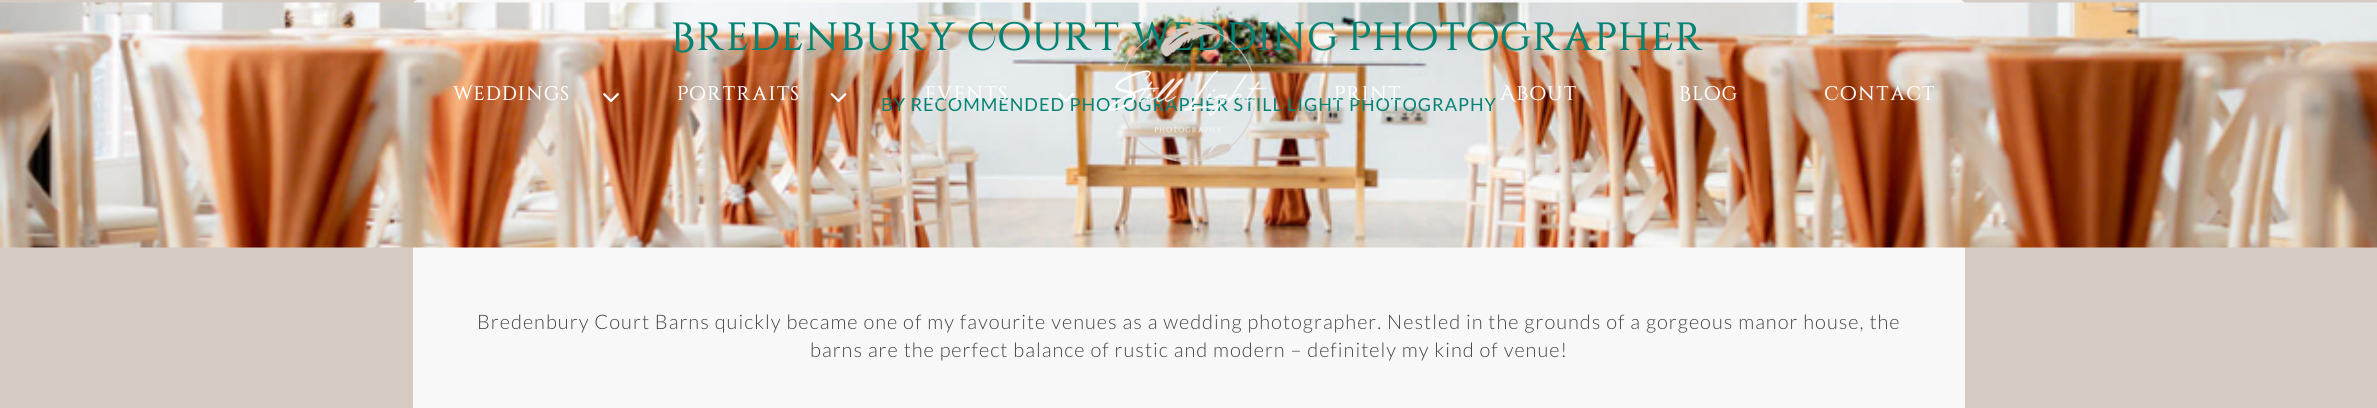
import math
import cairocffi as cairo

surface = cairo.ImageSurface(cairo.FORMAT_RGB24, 2377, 408)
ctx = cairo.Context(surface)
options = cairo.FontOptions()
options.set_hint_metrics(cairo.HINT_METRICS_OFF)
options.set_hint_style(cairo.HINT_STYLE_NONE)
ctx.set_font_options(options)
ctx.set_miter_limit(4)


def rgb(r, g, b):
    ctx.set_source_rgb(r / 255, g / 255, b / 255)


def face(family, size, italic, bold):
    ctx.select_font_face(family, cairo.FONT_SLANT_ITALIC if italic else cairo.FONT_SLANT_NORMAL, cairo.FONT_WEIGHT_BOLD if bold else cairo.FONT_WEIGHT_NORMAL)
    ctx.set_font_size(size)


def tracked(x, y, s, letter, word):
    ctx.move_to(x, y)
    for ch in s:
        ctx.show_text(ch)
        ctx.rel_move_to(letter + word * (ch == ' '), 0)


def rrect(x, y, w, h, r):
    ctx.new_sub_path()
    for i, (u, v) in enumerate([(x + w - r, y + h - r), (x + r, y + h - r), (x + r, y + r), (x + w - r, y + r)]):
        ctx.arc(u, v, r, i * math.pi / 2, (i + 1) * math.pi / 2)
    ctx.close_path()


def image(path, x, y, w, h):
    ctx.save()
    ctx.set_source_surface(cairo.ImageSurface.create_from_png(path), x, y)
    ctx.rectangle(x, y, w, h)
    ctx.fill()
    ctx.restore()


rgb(214, 203, 195)
ctx.paint()
rgb(248, 248, 248)
rrect(413, 0, 1552, 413, 5)
ctx.fill()
image('image0.png', 0, 2, 2377, 246)
face('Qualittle', 60, 0, 0)
rgb(4, 130, 115)
tracked(673, 50, 'Bredenbury Court Wedding Photographer', 1, 0)
face('Lato', 18, 0, 0)
tracked(881, 111, 'BY RECOMMENDED PHOTOGRAPHER STILL LIGHT PHOTOGRAPHY', 1, 0)
face('Lato Light', 20, 0, 0)
rgb(68, 68, 68)
tracked(477, 329, 'Bredenbury Court Barns quickly became one of my favourite venues as a wedding photographer. Nestled in the grounds of a gorgeous manor house, the', 1, 0)
tracked(810, 357, 'barns are the perfect balance of rustic and modern – definitely my kind of venue!', 1, 0)
face('Qualittle', 30, 0, 0)
rgb(255, 255, 255)
tracked(453, 100, 'Weddings', 1, 0)
image('image1.png', 603, 93, 16, 9)
tracked(678, 100, 'Portraits', 1, 0)
image('image2.png', 830, 93, 17, 10)
tracked(926, 100, 'Events', 1, 0)
image('image3.png', 1058, 93, 16, 9)
image('image4.png', 1107, 23, 160, 140)
tracked(1335, 100, 'Print', 1, 0)
tracked(1500, 100, 'About', 1, 0)
tracked(1680, 100, 'Blog', 1, 0)
tracked(1825, 100, 'Contact', 1, 0)
surface.write_to_png('render.png')
